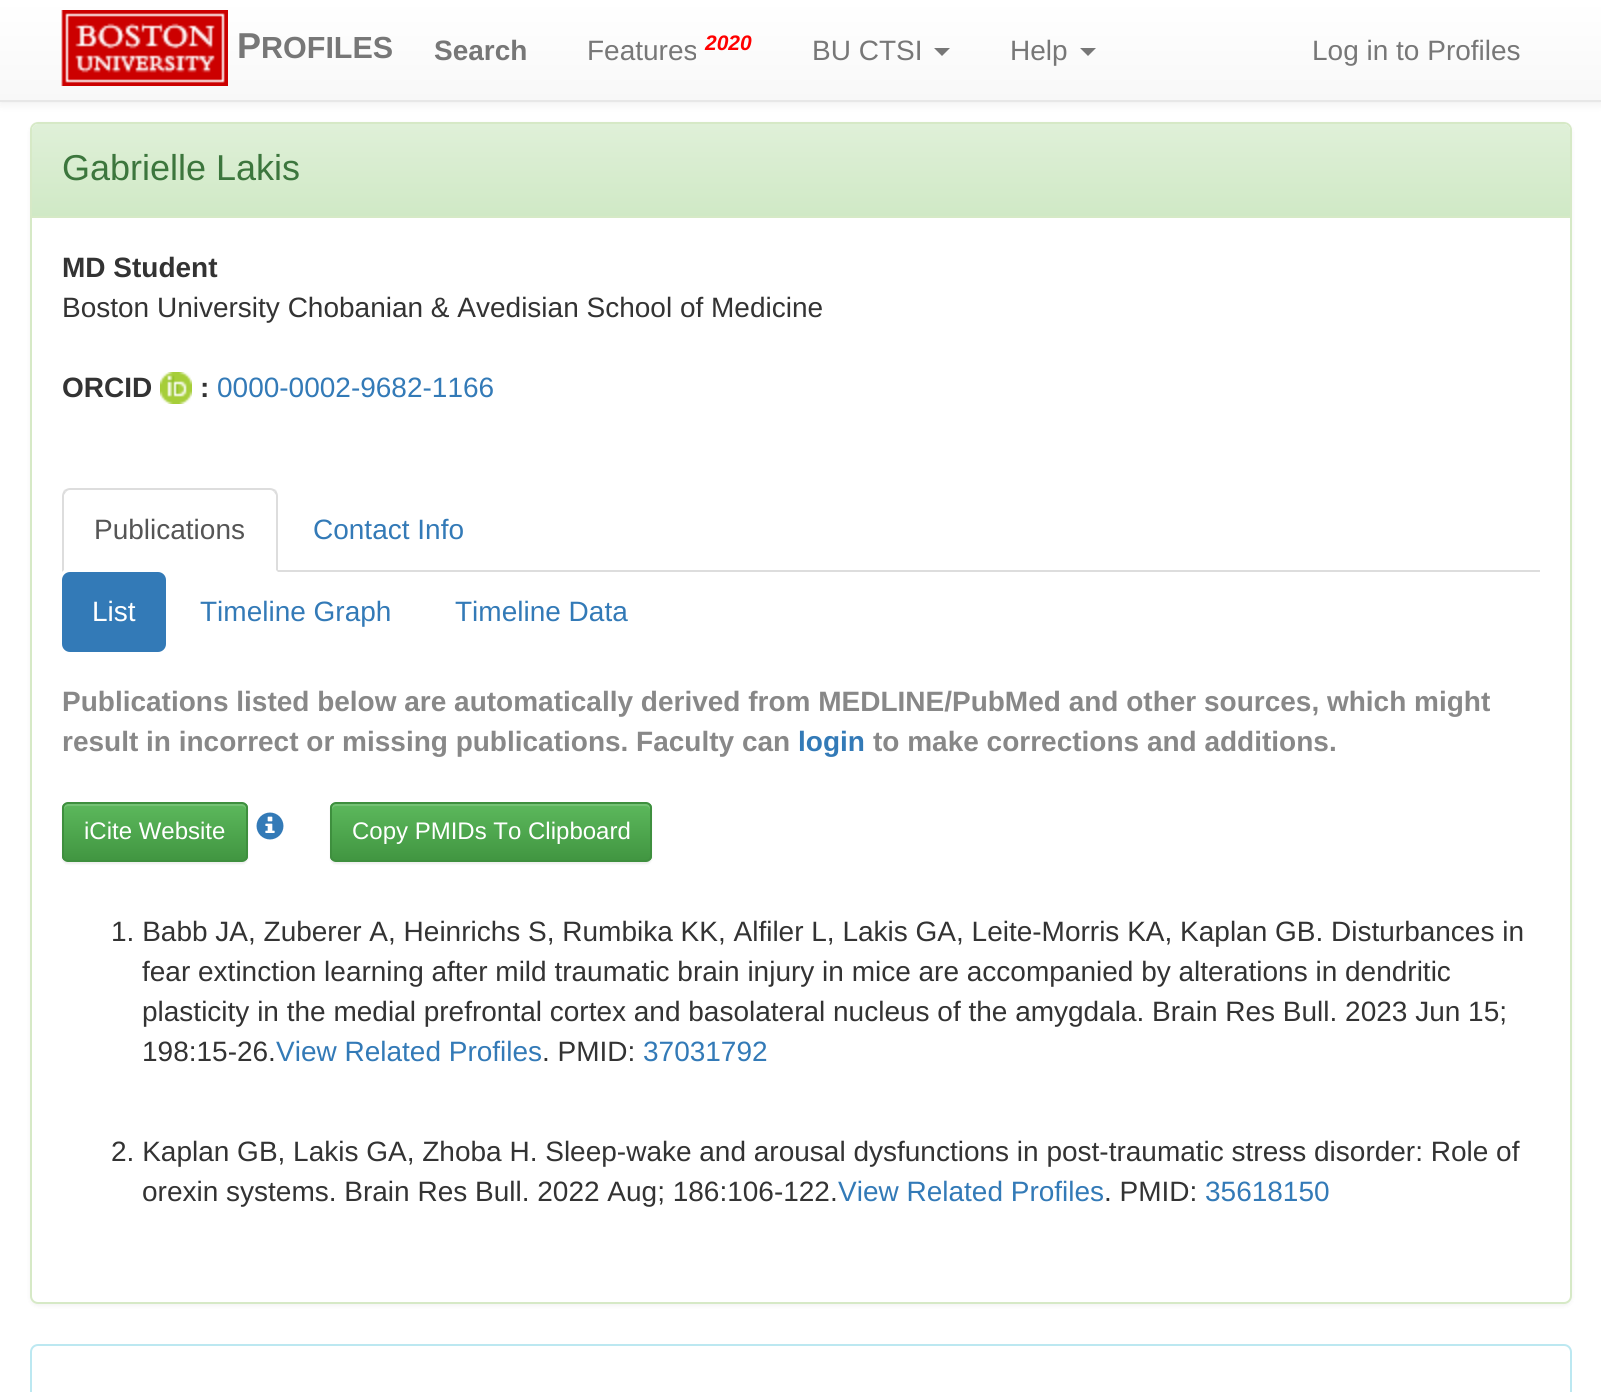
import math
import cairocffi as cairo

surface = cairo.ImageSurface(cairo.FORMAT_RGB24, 1601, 1392)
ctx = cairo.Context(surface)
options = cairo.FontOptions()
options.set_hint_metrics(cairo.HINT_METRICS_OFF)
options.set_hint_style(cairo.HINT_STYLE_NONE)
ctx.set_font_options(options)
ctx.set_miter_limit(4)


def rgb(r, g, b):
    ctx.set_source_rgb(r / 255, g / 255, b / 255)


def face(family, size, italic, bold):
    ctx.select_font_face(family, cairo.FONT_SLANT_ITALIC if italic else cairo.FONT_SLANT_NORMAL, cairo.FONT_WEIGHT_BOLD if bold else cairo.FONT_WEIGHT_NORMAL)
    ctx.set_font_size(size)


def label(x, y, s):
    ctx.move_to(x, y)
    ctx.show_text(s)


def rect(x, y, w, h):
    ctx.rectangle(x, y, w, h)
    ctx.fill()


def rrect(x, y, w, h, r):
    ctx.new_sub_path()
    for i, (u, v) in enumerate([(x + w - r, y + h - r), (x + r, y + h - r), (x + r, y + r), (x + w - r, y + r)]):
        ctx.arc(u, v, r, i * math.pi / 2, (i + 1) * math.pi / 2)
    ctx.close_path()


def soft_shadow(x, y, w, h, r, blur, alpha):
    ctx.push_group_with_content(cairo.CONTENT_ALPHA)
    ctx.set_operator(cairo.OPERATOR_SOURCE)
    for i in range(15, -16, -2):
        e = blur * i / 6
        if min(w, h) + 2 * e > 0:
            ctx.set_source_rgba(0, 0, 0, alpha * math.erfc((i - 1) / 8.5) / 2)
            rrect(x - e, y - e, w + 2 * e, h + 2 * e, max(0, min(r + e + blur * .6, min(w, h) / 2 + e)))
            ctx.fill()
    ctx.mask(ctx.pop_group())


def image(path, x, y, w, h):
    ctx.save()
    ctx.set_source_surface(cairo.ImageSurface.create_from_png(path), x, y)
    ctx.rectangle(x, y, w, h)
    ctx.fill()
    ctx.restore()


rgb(255, 255, 255)
ctx.paint()
rgb(0, 0, 0)
soft_shadow(0, 2, 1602, 102, 0, 5, 0.07)
gradient = cairo.LinearGradient(801, 0, 801, 100)
gradient.add_color_stop_rgba(0, 1, 1, 1, 1)
gradient.add_color_stop_rgba(1, 0.973, 0.973, 0.973, 1)
ctx.set_source(gradient)
rect(0, 0, 1601, 100)
rgb(231, 231, 231)
rect(0, 100, 1601, 2)
image('image0.png', 61, 10, 167, 76)
face('Liberation Sans', 36, 0, 1)
rgb(119, 119, 119)
label(237, 58, 'P')
face('Liberation Sans', 30.5, 0, 1)
label(261, 58, 'ROFILES')
face('Liberation Sans', 28, 0, 1)
label(434, 60, 'Search')
face('Liberation Sans', 28, 0, 0)
label(587, 60, 'Features')
face('Liberation Sans', 21, 1, 1)
rgb(255, 0, 0)
label(705, 50, '2020')
face('Liberation Sans', 28, 0, 0)
rgb(119, 119, 119)
label(812, 60, 'BU CTSI')
ctx.new_path()
ctx.move_to(934, 48)
ctx.line_to(950, 48)
ctx.line_to(942, 56)
ctx.close_path()
ctx.fill()
label(1010, 60, 'Help')
ctx.new_path()
ctx.move_to(1080, 48)
ctx.line_to(1096, 48)
ctx.line_to(1088, 56)
ctx.close_path()
ctx.fill()
label(1312, 60, 'Log in to Profiles')
rgb(0, 0, 0)
soft_shadow(30, 124, 1542, 1182, 8, 2, 0.05)
rgb(255, 255, 255)
rrect(31, 123, 1540, 1180, 7)
ctx.fill_preserve()
rgb(214, 233, 198)
ctx.stroke()
gradient = cairo.LinearGradient(801, 124, 801, 216)
gradient.add_color_stop_rgba(0, 0.875, 0.941, 0.847, 1)
gradient.add_color_stop_rgba(1, 0.816, 0.914, 0.776, 1)
ctx.set_source(gradient)
ctx.new_path()
ctx.move_to(38, 124)
ctx.line_to(1564, 124)
ctx.curve_to(1567.5, 124, 1570, 126.5, 1570, 130)
ctx.line_to(1570, 216)
ctx.line_to(32, 216)
ctx.line_to(32, 130)
ctx.curve_to(32, 126.5, 34.5, 124, 38, 124)
ctx.close_path()
ctx.fill()
rgb(214, 233, 198)
rect(32, 216, 1538, 2)
face('Liberation Sans', 36, 0, 0)
rgb(60, 118, 61)
label(62, 180, 'Gabrielle Lakis')
face('Liberation Sans', 28, 0, 1)
rgb(51, 51, 51)
label(62, 277, 'MD Student')
face('Liberation Sans', 28, 0, 0)
label(62, 317, 'Boston University Chobanian & Avedisian School of Medicine')
face('Liberation Sans', 28, 0, 1)
label(62, 397, 'ORCID')
image('image1.png', 160, 372, 32, 32)
label(200, 397, ':')
face('Liberation Sans', 28, 0, 0)
rgb(51, 122, 183)
label(217, 397, '0000-0002-9682-1166')
rgb(221, 221, 221)
rect(278, 570, 1262, 2)
ctx.new_path()
ctx.move_to(70, 488)
ctx.curve_to(68, 488, 66, 489, 64, 490)
ctx.line_to(66, 492)
ctx.curve_to(67, 491, 68, 490, 70, 490)
ctx.line_to(270, 490)
ctx.curve_to(272, 490, 273, 491, 274, 492)
ctx.line_to(276, 490)
ctx.curve_to(274, 489, 272, 488, 270, 488)
ctx.close_path()
ctx.fill()
ctx.new_path()
ctx.move_to(278, 572)
ctx.line_to(278, 496)
ctx.curve_to(278, 494, 277, 492, 276, 490)
ctx.line_to(274, 492)
ctx.line_to(276, 495)
ctx.line_to(276, 570)
ctx.close_path()
ctx.fill()
ctx.new_path()
ctx.move_to(62, 572)
ctx.line_to(64, 570)
ctx.line_to(64, 495)
ctx.line_to(66, 492)
ctx.line_to(64, 490)
ctx.curve_to(63, 492, 62, 494, 62, 496)
ctx.close_path()
ctx.fill()
rgb(85, 85, 85)
label(94, 539, 'Publications')
rgb(51, 122, 183)
label(313, 539, 'Contact Info')
rrect(62, 572, 104, 80, 8)
ctx.fill()
rgb(255, 255, 255)
label(92, 621, 'List')
rgb(51, 122, 183)
label(200, 621, 'Timeline Graph')
label(455, 621, 'Timeline Data')
face('Liberation Sans', 28, 0, 1)
rgb(136, 136, 136)
label(62, 711, 'Publications listed below are automatically derived from MEDLINE/PubMed and other sources, which might')
label(62, 751, 'result in incorrect or missing publications. Faculty can')
rgb(51, 122, 183)
label(798, 751, 'login')
rgb(136, 136, 136)
label(873, 751, 'to make corrections and additions.')
rgb(0, 0, 0)
soft_shadow(62, 804, 186, 60, 6, 1, 0.07)
ctx.save()
rrect(62, 802, 186, 60, 6)
ctx.clip()
gradient = cairo.LinearGradient(155, 804, 155, 860)
gradient.add_color_stop_rgba(0, 0.361, 0.722, 0.361, 1)
gradient.add_color_stop_rgba(1, 0.255, 0.588, 0.255, 1)
ctx.set_source(gradient)
rect(62, 804, 186, 56)
ctx.restore()
rgb(116, 194, 116)
ctx.new_path()
ctx.move_to(68, 806)
ctx.line_to(242, 806)
ctx.curve_to(244, 806, 246, 808, 246, 810)
ctx.line_to(246, 808)
ctx.curve_to(246, 806, 244, 804, 242, 804)
ctx.line_to(68, 804)
ctx.curve_to(66, 804, 64, 806, 64, 808)
ctx.line_to(64, 810)
ctx.curve_to(64, 808, 66, 806, 68, 806)
ctx.close_path()
ctx.fill()
rrect(63, 803, 184, 58, 5)
rgb(62, 143, 62)
ctx.stroke()
face('Liberation Sans', 24, 0, 0)
rgb(255, 255, 255)
label(84, 839, 'iCite Website')
image('image2.png', 256, 812, 28, 28)
rgb(0, 0, 0)
soft_shadow(330, 804, 322, 60, 6, 1, 0.07)
ctx.save()
rrect(330, 802, 322, 60, 6)
ctx.clip()
gradient = cairo.LinearGradient(491, 804, 491, 860)
gradient.add_color_stop_rgba(0, 0.361, 0.722, 0.361, 1)
gradient.add_color_stop_rgba(1, 0.255, 0.588, 0.255, 1)
ctx.set_source(gradient)
rect(330, 804, 322, 56)
ctx.restore()
rgb(116, 194, 116)
ctx.new_path()
ctx.move_to(336, 806)
ctx.line_to(646, 806)
ctx.curve_to(648, 806, 650, 808, 650, 810)
ctx.curve_to(650, 807, 650, 804, 646, 804)
ctx.line_to(336, 804)
ctx.curve_to(332, 804, 332, 807, 332, 810)
ctx.curve_to(332, 808, 334, 806, 336, 806)
ctx.close_path()
ctx.fill()
rrect(331, 803, 320, 58, 5)
rgb(62, 143, 62)
ctx.stroke()
rgb(255, 255, 255)
label(352, 839, 'Copy PMIDs To Clipboard')
face('Liberation Sans', 28, 0, 0)
rgb(51, 51, 51)
label(111, 941, '1. Babb JA, Zuberer A, Heinrichs S, Rumbika KK, Alfiler L, Lakis GA, Leite-Morris KA, Kaplan GB. Disturbances in')
label(142, 981, 'fear extinction learning after mild traumatic brain injury in mice are accompanied by alterations in dendritic')
label(142, 1021, 'plasticity in the medial prefrontal cortex and basolateral nucleus of the amygdala. Brain Res Bull. 2023 Jun 15;')
label(142, 1061, '198:15-26.')
rgb(51, 122, 183)
label(276, 1061, 'View Related Profiles')
rgb(51, 51, 51)
label(542, 1061, '. PMID:')
rgb(51, 122, 183)
label(643, 1061, '37031792')
rgb(51, 51, 51)
label(111, 1161, '2. Kaplan GB, Lakis GA, Zhoba H. Sleep-wake and arousal dysfunctions in post-traumatic stress disorder: Role of')
label(142, 1201, 'orexin systems. Brain Res Bull. 2022 Aug; 186:106-122.')
rgb(51, 122, 183)
label(838, 1201, 'View Related Profiles')
rgb(51, 51, 51)
label(1104, 1201, '. PMID:')
rgb(51, 122, 183)
label(1205, 1201, '35618150')
rrect(31, 1345, 1540, 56, 7)
rgb(188, 232, 241)
ctx.stroke()
surface.write_to_png('render.png')
